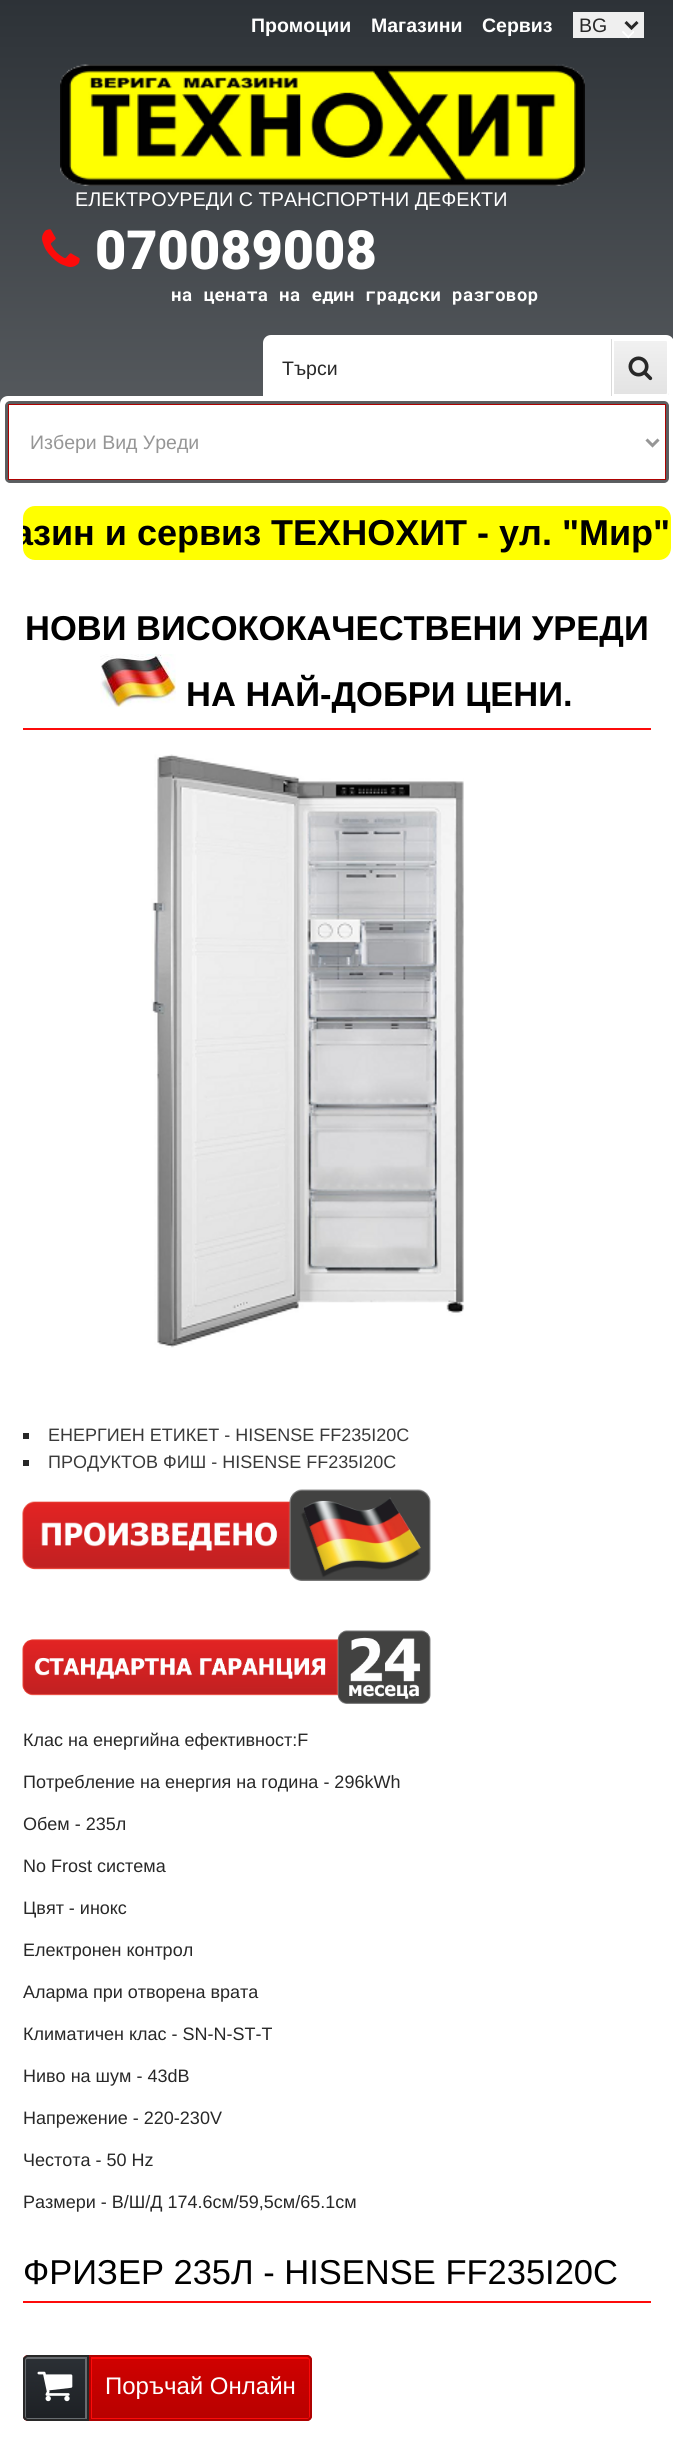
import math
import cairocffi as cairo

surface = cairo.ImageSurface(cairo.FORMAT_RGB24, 673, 2459)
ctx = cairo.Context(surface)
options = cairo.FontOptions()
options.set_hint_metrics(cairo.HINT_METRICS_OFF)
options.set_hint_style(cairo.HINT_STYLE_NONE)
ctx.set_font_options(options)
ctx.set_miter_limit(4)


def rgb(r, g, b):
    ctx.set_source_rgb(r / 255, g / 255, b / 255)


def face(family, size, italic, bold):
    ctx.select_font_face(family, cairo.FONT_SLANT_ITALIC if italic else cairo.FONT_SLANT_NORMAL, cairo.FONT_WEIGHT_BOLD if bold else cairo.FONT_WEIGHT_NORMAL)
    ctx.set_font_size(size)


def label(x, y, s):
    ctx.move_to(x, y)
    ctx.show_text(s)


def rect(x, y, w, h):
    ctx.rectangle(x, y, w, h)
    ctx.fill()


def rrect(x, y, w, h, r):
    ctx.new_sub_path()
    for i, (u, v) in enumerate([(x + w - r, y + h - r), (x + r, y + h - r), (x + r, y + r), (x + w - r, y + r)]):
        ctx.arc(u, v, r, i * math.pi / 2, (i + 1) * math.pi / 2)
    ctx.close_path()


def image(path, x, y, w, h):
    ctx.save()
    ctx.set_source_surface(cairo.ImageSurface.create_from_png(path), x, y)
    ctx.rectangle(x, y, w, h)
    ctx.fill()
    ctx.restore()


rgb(255, 255, 255)
ctx.paint()
gradient = cairo.LinearGradient(337, 0, 337, 2013)
gradient.add_color_stop_rgba(0, 0.176, 0.196, 0.216, 1)
gradient.add_color_stop_rgba(1, 0.953, 0.953, 0.953, 1)
ctx.set_source(gradient)
rect(0, 0, 673, 404)
face('Liberation Sans', 19.5, 0, 1)
rgb(255, 255, 255)
label(251, 32, 'Промоции')
label(371, 32, 'Магазини')
label(482, 32, 'Сервиз')
rgb(239, 239, 239)
rect(573, 12, 71, 26)
ctx.new_path()
ctx.move_to(625.5, 22)
ctx.line_to(631.5, 28)
ctx.line_to(637.5, 22)
rgb(40, 40, 40)
ctx.set_line_width(3)
ctx.stroke()
face('Liberation Sans', 19.5, 0, 0)
label(579, 32, 'BG')
image('image0.png', 622, 31, 12, 8)
image('image1.png', 60, 64, 525, 122)
face('Liberation Sans', 19.8, 0, 0)
rgb(255, 255, 255)
label(75, 206, 'ЕЛЕКТРОУРЕДИ С ТРАНСПОРТНИ ДЕФЕКТИ')
image('image2.png', 42, 229, 38, 38)
face('Roboto Black', 54, 0, 0)
label(95, 269, '070089008')
face('Roboto Mono', 18, 0, 1)
label(171, 301, 'на цената на един градски разговор')
ctx.new_path()
ctx.move_to(271, 335)
ctx.line_to(666, 335)
ctx.curve_to(670.5, 335, 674, 338.5, 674, 343)
ctx.line_to(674, 396)
ctx.line_to(263, 396)
ctx.line_to(263, 343)
ctx.curve_to(263, 338.5, 266.5, 335, 271, 335)
ctx.close_path()
ctx.fill()
rgb(217, 217, 217)
rect(611, 339, 1, 57)
face('Liberation Sans', 19.5, 0, 0)
rgb(40, 40, 40)
label(282, 375, 'Търси')
ctx.save()
ctx.new_path()
ctx.move_to(612, 339)
ctx.line_to(666, 339)
ctx.curve_to(667.5, 339, 669, 340.5, 669, 342)
ctx.line_to(669, 393)
ctx.curve_to(669, 394.5, 667.5, 396, 666, 396)
ctx.line_to(612, 396)
ctx.close_path()
ctx.clip()
gradient = cairo.LinearGradient(641, 341, 641, 395)
gradient.add_color_stop_rgba(0, 0.945, 0.945, 0.945, 1)
gradient.add_color_stop_rgba(1, 0.89, 0.89, 0.89, 1)
ctx.set_source(gradient)
rect(614, 341, 55, 54)
ctx.restore()
ctx.new_path()
ctx.move_to(613, 340)
ctx.line_to(666, 340)
ctx.curve_to(667, 340, 668, 341, 668, 342)
ctx.line_to(668, 393)
ctx.curve_to(668, 394, 667, 395, 666, 395)
ctx.line_to(613, 395)
ctx.close_path()
rgb(255, 255, 255)
ctx.set_line_width(2)
ctx.stroke()
image('image3.png', 628, 356, 25, 25)
ctx.new_path()
ctx.move_to(8, 396)
ctx.line_to(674, 396)
ctx.line_to(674, 483)
ctx.line_to(0, 483)
ctx.line_to(0, 404)
ctx.curve_to(0, 399.5, 3.5, 396, 8, 396)
ctx.close_path()
ctx.fill()
rrect(6, 402, 662, 80, 4)
rgb(93, 96, 98)
ctx.stroke()
rrect(7, 403, 660, 78, 4)
rgb(90, 93, 95)
ctx.stroke()
ctx.rectangle(9, 405, 656, 74)
rgb(174, 2, 1)
ctx.stroke()
rgb(255, 255, 255)
rect(9, 405, 656, 74)
ctx.new_path()
ctx.move_to(646.5, 439.5)
ctx.line_to(652.5, 445.5)
ctx.line_to(658.5, 439.5)
rgb(150, 150, 150)
ctx.set_line_width(3)
ctx.stroke()
label(30, 449, 'Избери Вид Уреди')
rgb(255, 255, 0)
rrect(23, 506, 648, 54, 12)
ctx.fill()
ctx.save()
rrect(23, 506, 648, 54, 12)
ctx.clip()
face('Liberation Sans', 36, 0, 1)
rgb(0, 0, 0)
label(13, 545, 'азин и сервиз ТЕХНОХИТ - ул. "Мир"')
ctx.restore()
rgb(253, 11, 10)
rect(23, 728, 628, 2)
face('Liberation Sans', 34.5, 0, 1)
rgb(0, 0, 0)
label(25, 640, 'НОВИ ВИСОКОКАЧЕСТВЕНИ УРЕДИ')
image('image4.png', 100, 654, 76, 53)
label(186, 706, 'НА НАЙ-ДОБРИ ЦЕНИ.')
image('image5.png', 151, 754, 313, 594)
rgb(40, 40, 40)
rect(23, 1433, 6, 6)
face('Liberation Sans', 18, 0, 0)
rgb(58, 58, 58)
label(48, 1441, 'ЕНЕРГИЕН ЕТИКЕТ - HISENSE FF235I20C')
rgb(40, 40, 40)
rect(23, 1460, 6, 6)
rgb(58, 58, 58)
label(48, 1468, 'ПРОДУКТОВ ФИШ - HISENSE FF235I20C')
image('image6.png', 22, 1489, 409, 92)
image('image7.png', 22, 1630, 409, 74)
rgb(40, 40, 40)
label(23, 1746, 'Клас на енергийна ефективност:F')
label(23, 1788, 'Потребление на енергия на година - 296kWh')
label(23, 1830, 'Обем - 235л')
label(23, 1872, 'No Frost система')
label(23, 1914, 'Цвят - инокс')
label(23, 1956, 'Електронен контрол')
label(23, 1998, 'Аларма при отворена врата')
label(23, 2040, 'Климатичен клас - SN-N-ST-T')
label(23, 2082, 'Ниво на шум - 43dB')
label(23, 2124, 'Напрежение - 220-230V')
label(23, 2166, 'Честота - 50 Hz')
label(23, 2208, 'Размери - В/Ш/Д 174.6см/59,5см/65.1см')
rgb(253, 11, 10)
rect(23, 2301, 628, 2)
face('Liberation Sans', 34.5, 0, 0)
rgb(0, 0, 0)
label(23, 2284, 'ФРИЗЕР 235Л - HISENSE FF235I20C')
gradient = cairo.LinearGradient(167, 2355, 167, 2421)
gradient.add_color_stop_rgba(0, 0.82, 0.004, 0, 1)
gradient.add_color_stop_rgba(1, 0.718, 0.004, 0, 1)
ctx.set_source(gradient)
rrect(23, 2355, 289, 66, 5)
ctx.fill()
ctx.save()
ctx.new_path()
ctx.move_to(28, 2355)
ctx.line_to(89, 2355)
ctx.line_to(89, 2421)
ctx.line_to(28, 2421)
ctx.curve_to(25, 2421, 23, 2419, 23, 2416)
ctx.line_to(23, 2360)
ctx.curve_to(23, 2357, 25, 2355, 28, 2355)
ctx.close_path()
ctx.clip()
gradient = cairo.LinearGradient(56, 2357, 56, 2420)
gradient.add_color_stop_rgba(0, 0.169, 0.188, 0.208, 1)
gradient.add_color_stop_rgba(1, 0.114, 0.125, 0.141, 1)
ctx.set_source(gradient)
rect(23, 2357, 62, 63)
ctx.restore()
ctx.new_path()
ctx.move_to(27, 2358)
ctx.line_to(86, 2358)
ctx.line_to(86, 2419)
ctx.line_to(27, 2419)
ctx.curve_to(26, 2419, 25, 2418, 25, 2417)
ctx.line_to(25, 2360)
ctx.curve_to(25, 2359, 26, 2358, 27, 2358)
ctx.close_path()
rgb(103, 107, 111)
ctx.set_line_width(2)
ctx.stroke()
ctx.new_path()
ctx.move_to(28, 2356)
ctx.line_to(88, 2356)
ctx.line_to(88, 2420)
ctx.line_to(28, 2420)
ctx.curve_to(26, 2420, 24, 2418, 24, 2416)
ctx.line_to(24, 2360)
ctx.curve_to(24, 2358, 26, 2356, 28, 2356)
ctx.close_path()
rgb(40, 40, 40)
ctx.stroke()
image('image8.png', 37, 2371, 36, 31)
ctx.new_path()
ctx.move_to(91, 2358)
ctx.line_to(308, 2358)
ctx.curve_to(309, 2358, 310, 2359, 310, 2360)
ctx.line_to(310, 2417)
ctx.curve_to(310, 2418, 309, 2419, 308, 2419)
ctx.line_to(91, 2419)
ctx.close_path()
rgb(253, 11, 10)
ctx.stroke()
ctx.new_path()
ctx.move_to(90, 2356)
ctx.line_to(307, 2356)
ctx.curve_to(309, 2356, 311, 2358, 311, 2360)
ctx.line_to(311, 2416)
ctx.curve_to(311, 2418, 309, 2420, 307, 2420)
ctx.line_to(90, 2420)
ctx.close_path()
rgb(174, 2, 1)
ctx.stroke()
face('Liberation Sans', 24, 0, 0)
rgb(255, 255, 255)
label(105, 2394, 'Поръчай Онлайн')
surface.write_to_png('render.png')
